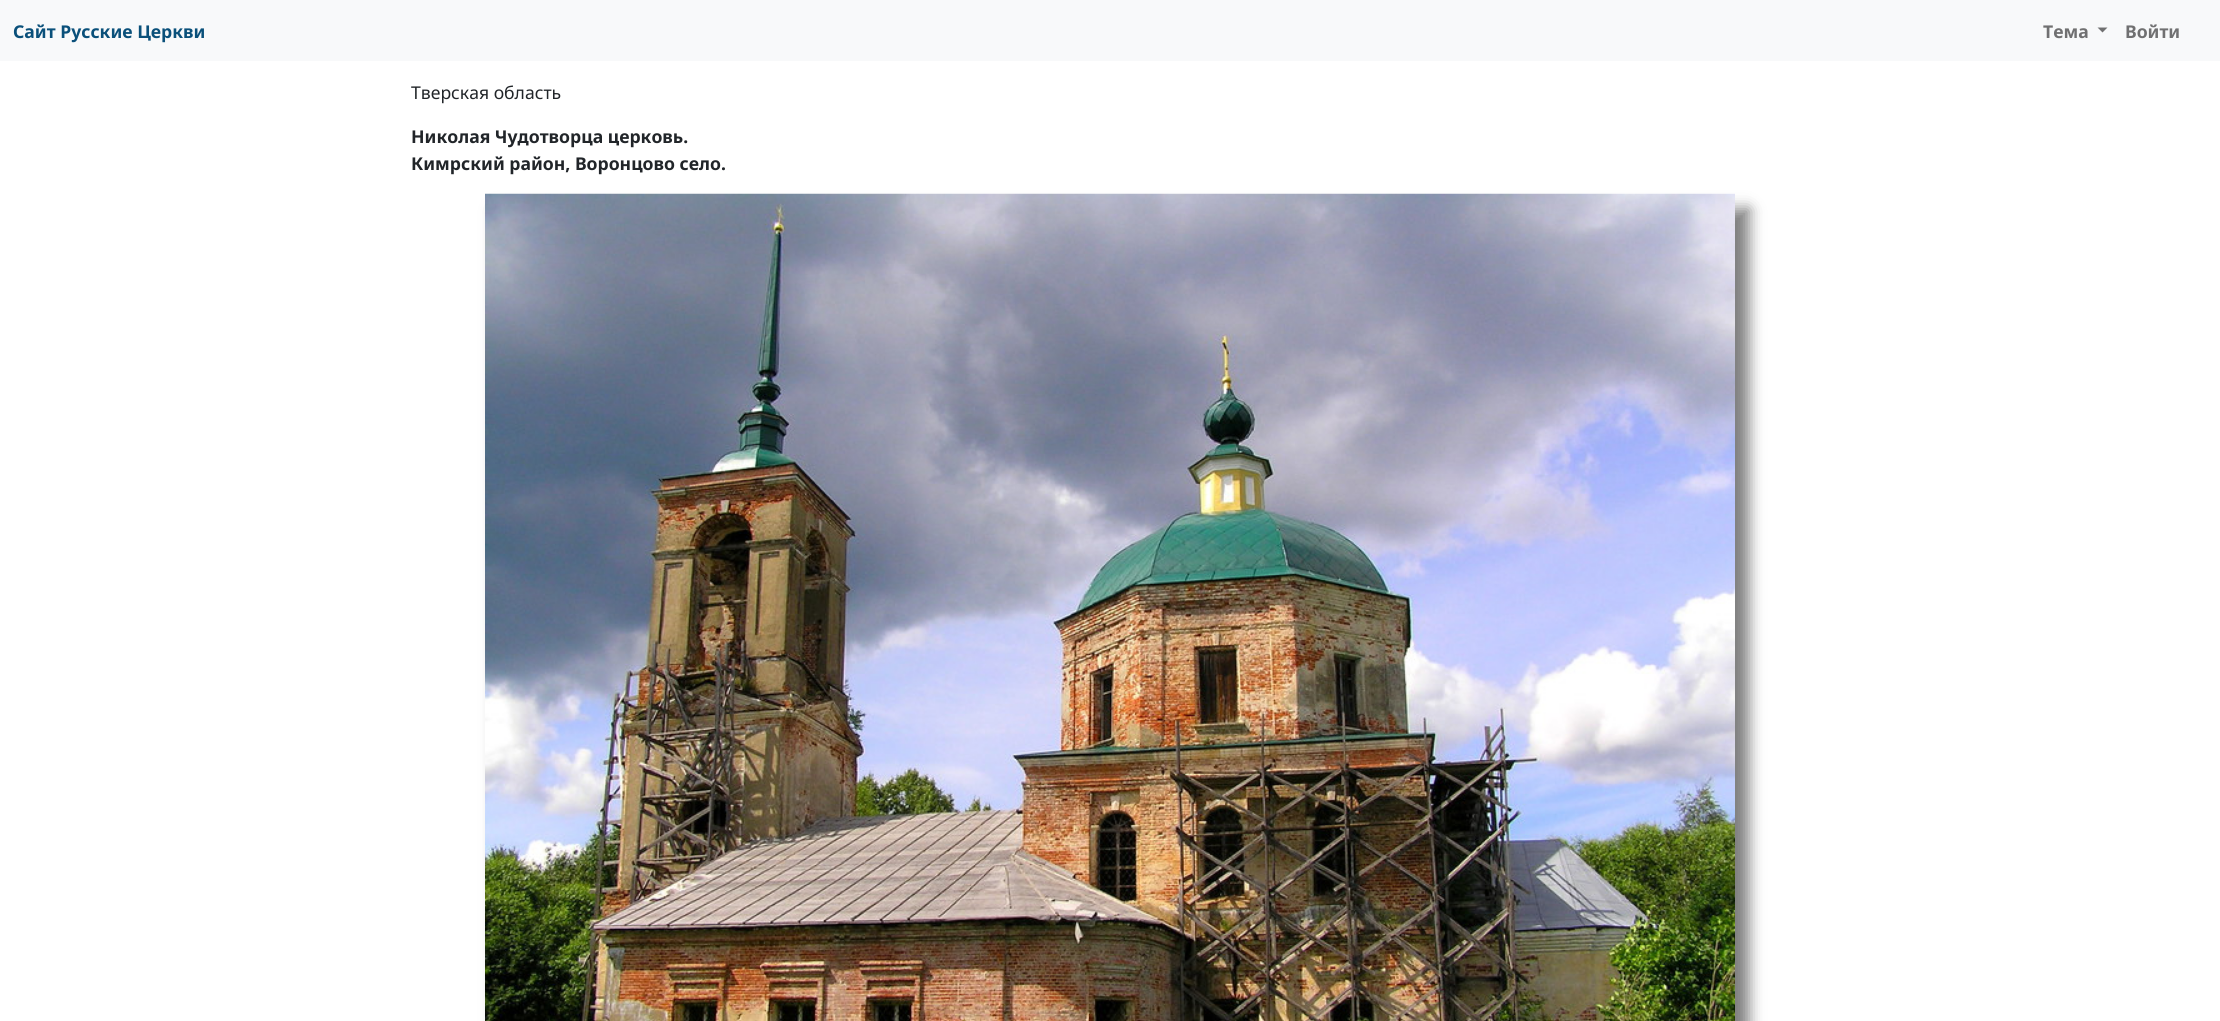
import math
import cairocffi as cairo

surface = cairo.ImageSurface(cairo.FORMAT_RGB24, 2220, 1021)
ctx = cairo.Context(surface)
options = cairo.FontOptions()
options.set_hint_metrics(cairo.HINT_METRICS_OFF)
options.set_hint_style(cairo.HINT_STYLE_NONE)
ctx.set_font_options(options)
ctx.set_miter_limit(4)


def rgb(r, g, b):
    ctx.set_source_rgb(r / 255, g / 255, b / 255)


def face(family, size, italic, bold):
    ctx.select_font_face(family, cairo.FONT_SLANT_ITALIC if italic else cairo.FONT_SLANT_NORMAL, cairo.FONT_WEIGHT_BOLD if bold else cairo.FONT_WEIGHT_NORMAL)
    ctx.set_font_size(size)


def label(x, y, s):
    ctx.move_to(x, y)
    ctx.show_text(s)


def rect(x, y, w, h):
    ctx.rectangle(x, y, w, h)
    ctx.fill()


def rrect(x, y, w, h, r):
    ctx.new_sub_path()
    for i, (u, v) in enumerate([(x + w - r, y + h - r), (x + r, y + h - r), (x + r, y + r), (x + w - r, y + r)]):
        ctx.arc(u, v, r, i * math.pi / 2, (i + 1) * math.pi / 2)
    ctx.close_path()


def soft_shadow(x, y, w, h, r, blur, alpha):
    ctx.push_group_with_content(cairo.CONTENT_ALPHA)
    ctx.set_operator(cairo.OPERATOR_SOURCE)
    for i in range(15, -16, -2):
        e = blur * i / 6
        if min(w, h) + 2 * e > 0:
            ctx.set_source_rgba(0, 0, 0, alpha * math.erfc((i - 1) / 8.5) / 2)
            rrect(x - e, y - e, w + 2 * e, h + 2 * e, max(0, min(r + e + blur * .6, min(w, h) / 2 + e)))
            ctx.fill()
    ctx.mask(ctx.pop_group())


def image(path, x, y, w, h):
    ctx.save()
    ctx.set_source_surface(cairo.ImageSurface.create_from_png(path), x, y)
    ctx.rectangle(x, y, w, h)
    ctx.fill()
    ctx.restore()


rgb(255, 255, 255)
ctx.paint()
rgb(248, 249, 250)
rect(0, 0, 2220, 61)
face('Noto Sans', 17.6, 0, 1)
rgb(10, 80, 122)
label(13, 38, 'Сайт Русские Церкви')
rgb(112, 112, 113)
label(2043, 38, 'Тема')
ctx.new_path()
ctx.move_to(2097.5, 27.5)
ctx.line_to(2107.5, 27.5)
ctx.line_to(2102.5, 32.5)
ctx.close_path()
ctx.fill()
label(2125, 38, 'Войти')
face('Noto Sans', 17.6, 0, 0)
rgb(33, 37, 41)
label(411, 99, 'Тверская область')
face('Noto Sans', 17.6, 0, 1)
label(411, 143, 'Николая Чудотворца церковь.')
label(411, 170, 'Кимрский район, Воронцово село.')
rgb(0, 0, 0)
soft_shadow(496, 209, 1253, 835, 0, 7.5, 0.51)
image('image0.png', 485, 193, 1250, 828)
surface.write_to_png('render.png')
